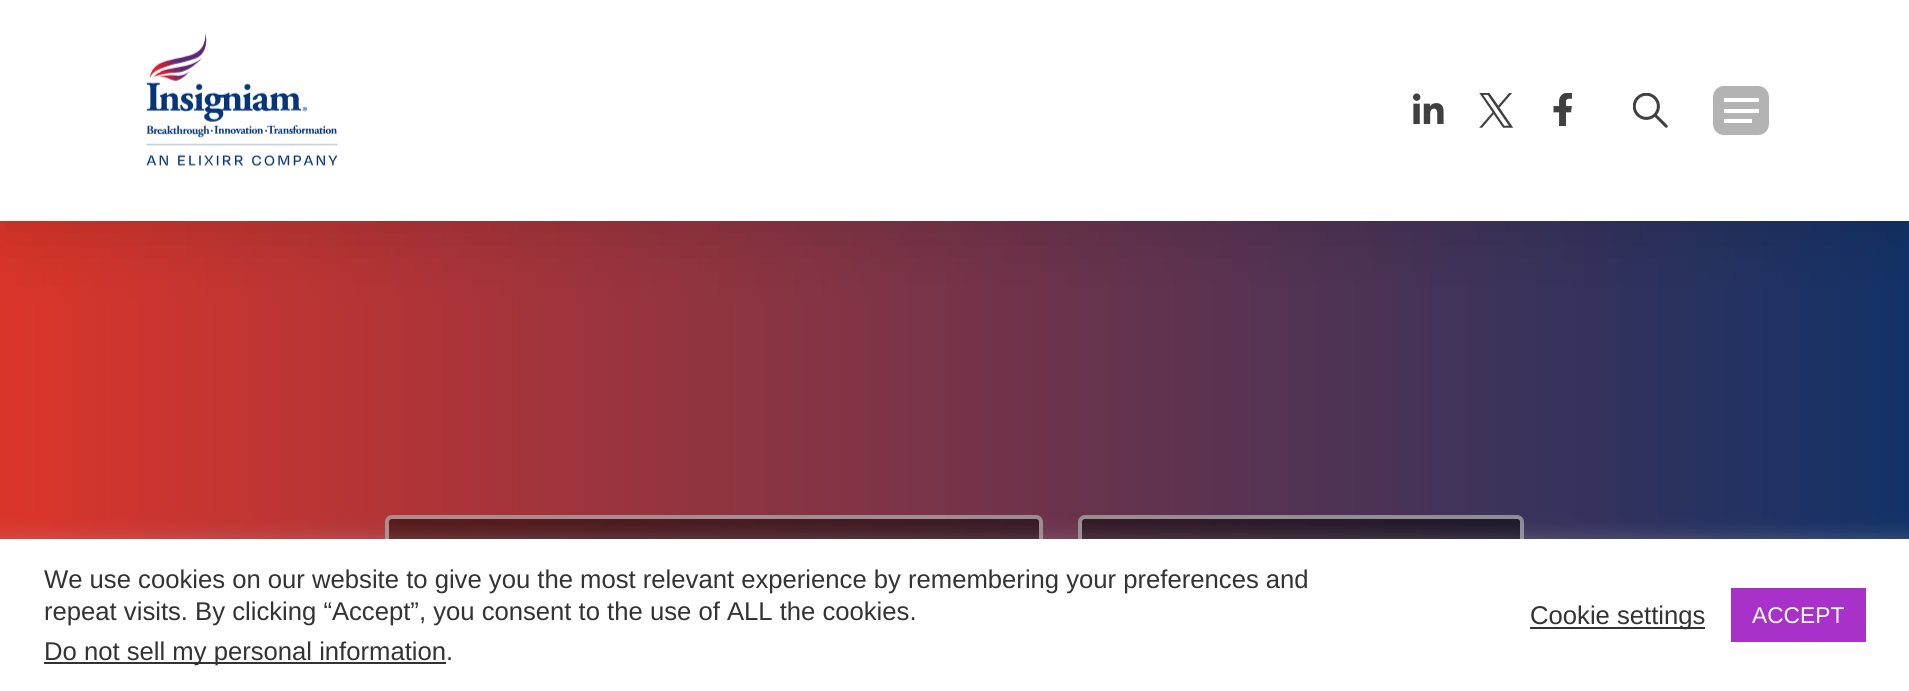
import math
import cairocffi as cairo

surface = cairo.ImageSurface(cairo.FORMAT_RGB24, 1909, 691)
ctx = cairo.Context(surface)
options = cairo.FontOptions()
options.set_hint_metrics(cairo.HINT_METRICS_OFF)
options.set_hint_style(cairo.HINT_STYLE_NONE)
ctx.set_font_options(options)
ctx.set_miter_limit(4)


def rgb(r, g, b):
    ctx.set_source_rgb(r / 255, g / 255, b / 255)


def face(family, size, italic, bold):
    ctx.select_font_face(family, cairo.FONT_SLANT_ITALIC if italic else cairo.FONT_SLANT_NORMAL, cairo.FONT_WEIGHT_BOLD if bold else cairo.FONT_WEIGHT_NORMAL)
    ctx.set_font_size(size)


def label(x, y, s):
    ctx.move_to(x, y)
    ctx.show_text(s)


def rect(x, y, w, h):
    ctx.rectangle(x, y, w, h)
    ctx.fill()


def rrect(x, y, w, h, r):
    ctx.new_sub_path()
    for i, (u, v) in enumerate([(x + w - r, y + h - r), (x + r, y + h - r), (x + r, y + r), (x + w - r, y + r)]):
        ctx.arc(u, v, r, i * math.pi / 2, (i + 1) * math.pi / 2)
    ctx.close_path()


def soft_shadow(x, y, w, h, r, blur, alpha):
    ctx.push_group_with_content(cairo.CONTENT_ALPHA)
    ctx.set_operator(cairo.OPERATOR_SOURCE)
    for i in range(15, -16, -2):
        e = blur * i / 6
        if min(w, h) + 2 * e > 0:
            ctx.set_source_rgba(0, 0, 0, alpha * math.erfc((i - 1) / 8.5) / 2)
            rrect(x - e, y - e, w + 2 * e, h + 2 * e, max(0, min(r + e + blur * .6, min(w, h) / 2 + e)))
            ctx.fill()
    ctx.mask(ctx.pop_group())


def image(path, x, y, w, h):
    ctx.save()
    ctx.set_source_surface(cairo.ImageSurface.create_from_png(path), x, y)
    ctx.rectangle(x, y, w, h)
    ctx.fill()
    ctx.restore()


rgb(255, 255, 255)
ctx.paint()
gradient = cairo.LinearGradient(0, 583, 1909, 583)
gradient.add_color_stop_rgba(0, 0.859, 0.208, 0.165, 1)
gradient.add_color_stop_rgba(1, 0.071, 0.196, 0.404, 1)
ctx.set_source(gradient)
rect(0, 221, 1909, 318)
rgb(0, 0, 0)
soft_shadow(0, 5, 1909, 221, 0, 39.5, 0.16)
rgb(255, 255, 255)
rect(0, 0, 1909, 221)
image('image0.png', 146, 33, 192, 133)
image('image1.png', 1413, 93, 31, 31)
image('image2.png', 1479, 93, 34, 35)
image('image3.png', 1553, 93, 19, 33)
image('image4.png', 1633, 93, 35, 35)
rgb(179, 179, 179)
rrect(1713, 86, 56, 49, 11)
ctx.fill()
rgb(255, 255, 255)
rect(1724, 109, 35, 4)
rect(1724, 98, 35, 4)
rect(1724, 119, 28, 4)
ctx.set_source_rgba(0, 0, 0, 0.5)
rrect(385, 515, 658, 56, 7)
ctx.fill()
rrect(387, 517, 654, 52, 5)
ctx.set_source_rgba(1, 1, 1, 0.5)
ctx.set_line_width(4)
ctx.stroke()
ctx.set_source_rgba(0, 0, 0, 0.5)
rrect(1078, 515, 446, 56, 7)
ctx.fill()
rrect(1080, 517, 442, 52, 5)
ctx.set_source_rgba(1, 1, 1, 0.5)
ctx.stroke()
rgb(172, 171, 171)
soft_shadow(0, 537, 1909, 153, 0, 9, 0.3)
rgb(255, 255, 255)
rect(0, 539, 1909, 152)
face('Liberation Sans', 25.65, 0, 0)
rgb(51, 51, 51)
label(44, 588, 'We use cookies on our website to give you the most relevant experience by remembering your preferences and')
label(44, 620, 'repeat visits. By clicking “Accept”, you consent to the use of ALL the cookies.')
rect(44, 662, 402, 2)
label(44, 660, 'Do not sell my personal information.')
rect(1530, 627, 175, 2)
label(1530, 624, 'Cookie settings')
rgb(168, 50, 201)
rect(1731, 588, 135, 54)
face('Liberation Sans', 22.75, 0, 0)
rgb(255, 255, 255)
label(1752, 623, 'ACCEPT')
surface.write_to_png('render.png')
